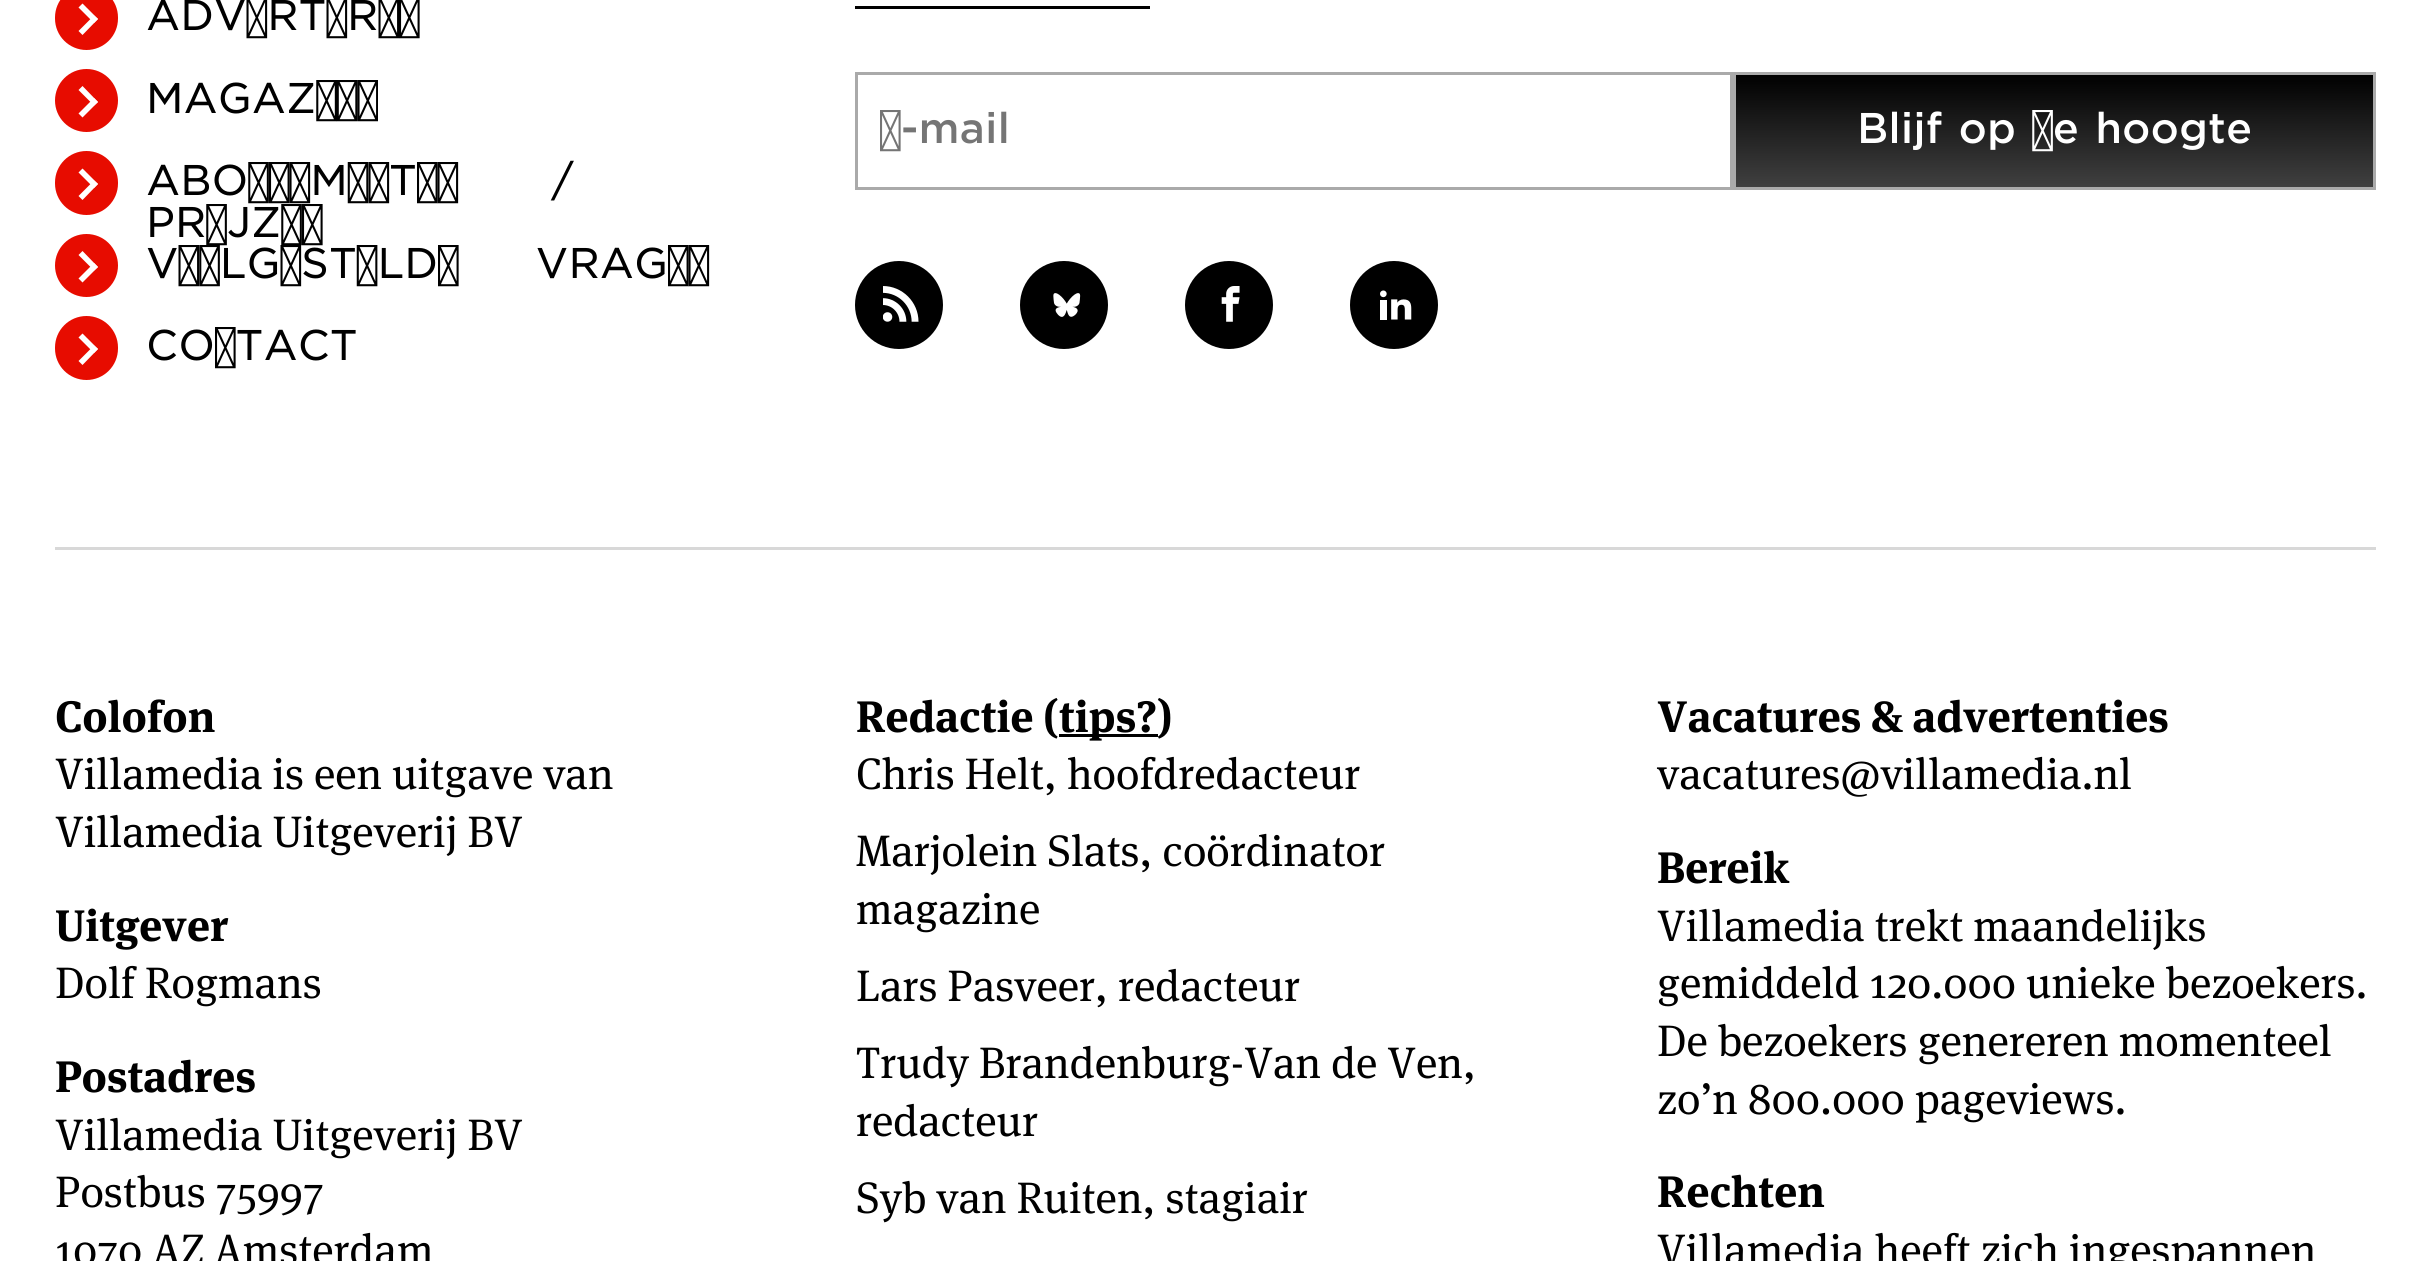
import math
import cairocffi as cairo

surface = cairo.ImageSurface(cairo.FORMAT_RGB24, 2430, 1261)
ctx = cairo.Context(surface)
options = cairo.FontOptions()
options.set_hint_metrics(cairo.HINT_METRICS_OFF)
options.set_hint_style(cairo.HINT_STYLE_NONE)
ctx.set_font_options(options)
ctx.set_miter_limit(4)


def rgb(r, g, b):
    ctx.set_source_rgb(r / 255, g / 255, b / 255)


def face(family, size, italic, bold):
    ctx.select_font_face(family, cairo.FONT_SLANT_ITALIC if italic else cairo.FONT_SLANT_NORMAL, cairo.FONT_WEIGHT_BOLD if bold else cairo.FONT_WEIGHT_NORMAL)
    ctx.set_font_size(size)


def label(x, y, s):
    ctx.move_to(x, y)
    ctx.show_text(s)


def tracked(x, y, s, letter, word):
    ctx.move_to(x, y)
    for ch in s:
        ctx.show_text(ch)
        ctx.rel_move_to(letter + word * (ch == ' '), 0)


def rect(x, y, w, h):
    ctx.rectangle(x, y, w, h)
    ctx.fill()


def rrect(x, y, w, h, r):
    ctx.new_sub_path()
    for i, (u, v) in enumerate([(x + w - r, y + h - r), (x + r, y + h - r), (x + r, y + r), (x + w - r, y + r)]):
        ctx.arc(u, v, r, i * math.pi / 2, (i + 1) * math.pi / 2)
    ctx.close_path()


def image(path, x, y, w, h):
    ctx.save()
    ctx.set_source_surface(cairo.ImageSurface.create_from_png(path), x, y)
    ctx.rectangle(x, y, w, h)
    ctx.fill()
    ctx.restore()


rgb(255, 255, 255)
ctx.paint()
rgb(231, 12, 0)
rrect(55, -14, 63, 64, 31.5)
ctx.fill()
face('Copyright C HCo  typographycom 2 Light', 41.25, 0, 0)
rgb(0, 0, 0)
label(146, 30, 'ADVERTEREN')
rgb(255, 255, 255)
ctx.new_path()
ctx.move_to(78.5, 7.5)
ctx.line_to(82.5, 3.5)
ctx.line_to(98, 19)
ctx.line_to(94, 23)
ctx.close_path()
ctx.fill()
ctx.new_path()
ctx.move_to(78.5, 31)
ctx.line_to(94, 15.5)
ctx.line_to(98, 19)
ctx.line_to(82.5, 35)
ctx.close_path()
ctx.fill()
rgb(231, 12, 0)
ctx.arc(86.5, 100.5, 31.5, 0, 2 * math.pi)
ctx.fill()
rgb(0, 0, 0)
label(146, 113, 'MAGAZINE')
rgb(255, 255, 255)
ctx.new_path()
ctx.move_to(78.5, 90)
ctx.line_to(82.5, 86)
ctx.line_to(98, 102)
ctx.line_to(94, 105.5)
ctx.close_path()
ctx.fill()
ctx.new_path()
ctx.move_to(78.5, 113.5)
ctx.line_to(94, 98)
ctx.line_to(98, 102)
ctx.line_to(82.5, 117.5)
ctx.close_path()
ctx.fill()
rgb(231, 12, 0)
rrect(55, 151, 63, 64, 31.5)
ctx.fill()
rgb(0, 0, 0)
tracked(146, 195, 'ABONNEMENTEN /', 0, 80)
rgb(255, 255, 255)
ctx.new_path()
ctx.move_to(78.5, 172.5)
ctx.line_to(82.5, 168.5)
ctx.line_to(98, 184)
ctx.line_to(94, 188)
ctx.close_path()
ctx.fill()
ctx.new_path()
ctx.move_to(78.5, 196)
ctx.line_to(94, 180.5)
ctx.line_to(98, 184)
ctx.line_to(82.5, 200)
ctx.close_path()
ctx.fill()
rgb(0, 0, 0)
label(146, 237, 'PRIJZEN')
rgb(231, 12, 0)
ctx.new_path()
ctx.arc(86.5, 265.5, 31.5, 0, 2 * math.pi)
ctx.fill()
rgb(0, 0, 0)
tracked(146, 278, 'VEELGESTELDE VRAGEN', 0, 64)
rgb(255, 255, 255)
ctx.new_path()
ctx.move_to(78.5, 255)
ctx.line_to(82.5, 251)
ctx.line_to(98, 267)
ctx.line_to(94, 270.5)
ctx.close_path()
ctx.fill()
ctx.new_path()
ctx.move_to(78.5, 278.5)
ctx.line_to(94, 263)
ctx.line_to(98, 267)
ctx.line_to(82.5, 282.5)
ctx.close_path()
ctx.fill()
rgb(231, 12, 0)
rrect(55, 316, 63, 64, 31.5)
ctx.fill()
rgb(0, 0, 0)
label(146, 360, 'CONTACT')
rgb(255, 255, 255)
ctx.new_path()
ctx.move_to(78.5, 337.5)
ctx.line_to(82.5, 333.5)
ctx.line_to(98, 349)
ctx.line_to(94, 353)
ctx.close_path()
ctx.fill()
ctx.new_path()
ctx.move_to(78.5, 361)
ctx.line_to(94, 345.5)
ctx.line_to(98, 349)
ctx.line_to(82.5, 365)
ctx.close_path()
ctx.fill()
rgb(0, 0, 0)
rect(855, 6, 295, 3)
ctx.rectangle(856.5, 73.5, 875, 115)
rgb(170, 170, 170)
ctx.set_line_width(3)
ctx.stroke()
ctx.save()
ctx.rectangle(880, 105, 850, 49)
ctx.clip()
face('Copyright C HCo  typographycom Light', 41.25, 0, 0)
rgb(117, 117, 117)
label(880, 143, 'E-mail')
ctx.restore()
gradient = cairo.LinearGradient(2054, 74, 2054, 187)
gradient.add_color_stop_rgba(0, 0, 0, 0, 1)
gradient.add_color_stop_rgba(1, 0.251, 0.251, 0.251, 1)
ctx.set_source(gradient)
rect(1736, 75, 637, 112)
ctx.rectangle(1734.5, 73.5, 640, 115)
rgb(170, 170, 170)
ctx.stroke()
face('Copyright C HCo  typographycom Light', 41.25, 0, 0)
rgb(255, 255, 255)
tracked(1857, 143, 'Blijf op de hoogte', 0, 3)
rgb(0, 0, 0)
ctx.new_path()
ctx.arc(899, 305, 44, 0, 2 * math.pi)
ctx.fill()
image('image0.png', 883, 286, 36, 36)
ctx.arc(1064, 305, 44, 0, 2 * math.pi)
ctx.fill()
image('image1.png', 1053, 293, 28, 24)
ctx.arc(1229, 305, 44, 0, 2 * math.pi)
ctx.fill()
image('image2.png', 1221, 286, 19, 36)
ctx.arc(1394, 305, 44, 0, 2 * math.pi)
ctx.fill()
image('image3.png', 1380, 290, 32, 30)
rgb(216, 216, 216)
rect(55, 547, 2321, 3)
face('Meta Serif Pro', 44, 0, 1)
rgb(0, 0, 0)
label(55, 732, 'Colofon')
face('Meta Serif Pro', 44, 0, 0)
label(55, 789, 'Villamedia is een uitgave van')
label(55, 847, 'Villamedia Uitgeverij BV')
face('Meta Serif Pro', 44, 0, 1)
label(55, 941, 'Uitgever')
face('Meta Serif Pro', 44, 0, 0)
label(55, 998, 'Dolf Rogmans')
face('Meta Serif Pro', 44, 0, 1)
label(55, 1092, 'Postadres')
face('Meta Serif Pro', 44, 0, 0)
label(55, 1150, 'Villamedia Uitgeverij BV')
label(55, 1207, 'Postbus 75997')
label(55, 1265, '1070 AZ Amsterdam')
face('Meta Serif Pro', 44, 0, 1)
label(856, 732, 'Redactie (')
rect(1059, 734, 99, 3)
label(1059, 732, 'tips?)')
face('Meta Serif Pro', 44, 0, 0)
label(856, 789, 'Chris Helt, hoofdredacteur')
label(856, 866, 'Marjolein Slats, coördinator')
label(856, 924, 'magazine')
label(856, 1001, 'Lars Pasveer, redacteur')
label(856, 1078, 'Trudy Brandenburg-Van de Ven,')
label(856, 1136, 'redacteur')
label(856, 1213, 'Syb van Ruiten, stagiair')
face('Meta Serif Pro', 44, 0, 1)
label(1657, 732, 'Vacatures & advertenties')
face('Meta Serif Pro', 44, 0, 0)
label(1657, 789, 'vacatures@villamedia.nl')
face('Meta Serif Pro', 44, 0, 1)
label(1657, 883, 'Bereik')
face('Meta Serif Pro', 44, 0, 0)
label(1657, 941, 'Villamedia trekt maandelijks')
label(1657, 998, 'gemiddeld 120.000 unieke bezoekers.')
label(1657, 1056, 'De bezoekers genereren momenteel')
label(1657, 1114, 'zo’n 800.000 pageviews.')
face('Meta Serif Pro', 44, 0, 1)
label(1657, 1207, 'Rechten')
face('Meta Serif Pro', 44, 0, 0)
label(1657, 1265, 'Villamedia heeft zich ingespannen')
surface.write_to_png('render.png')
